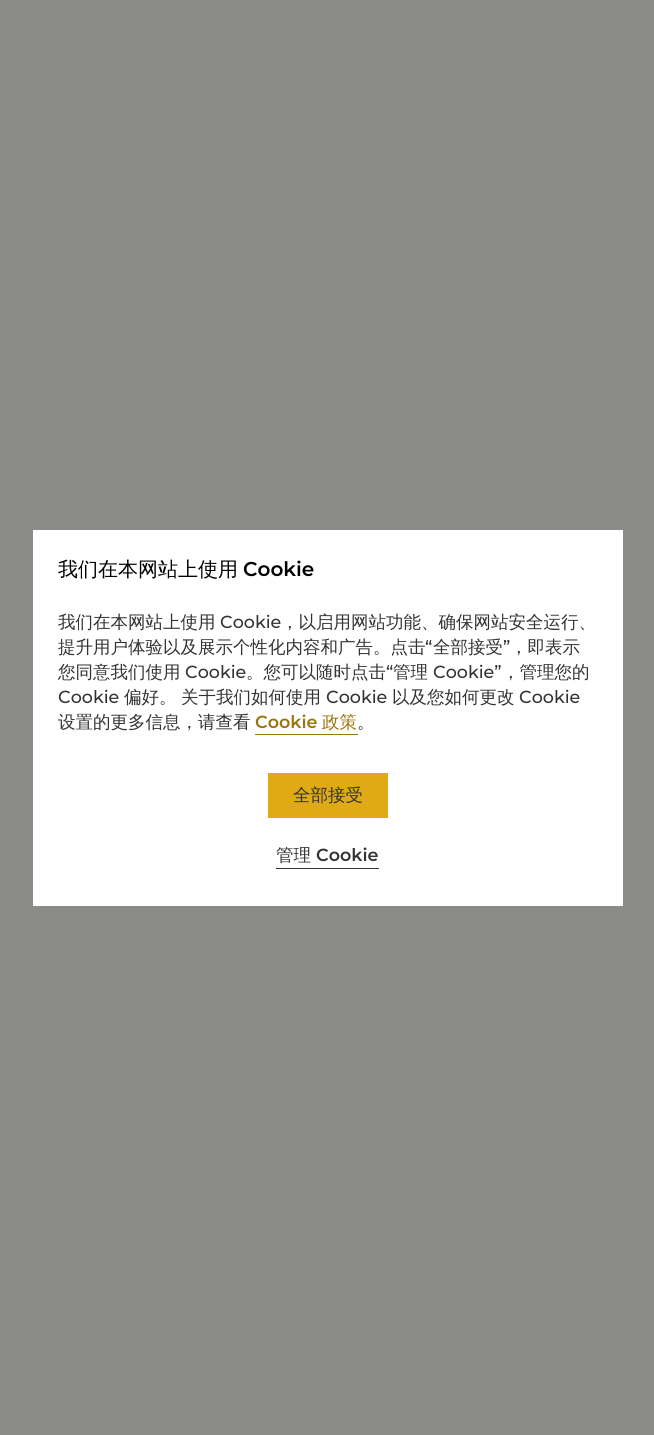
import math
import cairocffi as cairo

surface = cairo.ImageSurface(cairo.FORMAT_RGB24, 654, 1435)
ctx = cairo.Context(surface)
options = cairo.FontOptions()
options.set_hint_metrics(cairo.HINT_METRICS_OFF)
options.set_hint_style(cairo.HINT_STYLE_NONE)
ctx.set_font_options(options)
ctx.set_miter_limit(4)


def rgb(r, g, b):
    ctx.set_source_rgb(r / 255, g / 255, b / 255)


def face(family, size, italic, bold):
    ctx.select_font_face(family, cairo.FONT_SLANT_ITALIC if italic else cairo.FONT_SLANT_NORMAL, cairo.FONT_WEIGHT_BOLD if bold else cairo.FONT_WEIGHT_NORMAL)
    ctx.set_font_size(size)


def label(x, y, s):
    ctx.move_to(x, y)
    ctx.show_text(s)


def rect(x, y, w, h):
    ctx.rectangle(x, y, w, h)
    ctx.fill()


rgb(138, 138, 134)
ctx.paint()
rgb(255, 255, 255)
rect(33, 530, 590, 376)
face('WenQuanYi Zen Hei Medium', 20, 0, 0)
rgb(0, 0, 0)
label(58, 576, '我们在本网站上使用')
face('Montserrat SemiBold', 20, 0, 0)
label(243, 576, 'Cookie')
face('WenQuanYi Zen Hei Medium', 17.5, 0, 0)
rgb(51, 51, 51)
label(58, 628, '我们在本网站上使用')
face('Montserrat Medium', 17.5, 0, 0)
label(220, 628, 'Cookie')
face('WenQuanYi Zen Hei Medium', 17.5, 0, 0)
label(281, 628, '，以启用网站功能、确保网站安全运行、')
label(58, 653, '提升用户体验以及展示个性化内容和广告。点击')
face('Montserrat Medium', 17.5, 0, 0)
label(425, 653, '“')
face('WenQuanYi Zen Hei Medium', 17.5, 0, 0)
label(433, 653, '全部接受')
face('Montserrat Medium', 17.5, 0, 0)
label(503, 653, '”')
face('WenQuanYi Zen Hei Medium', 17.5, 0, 0)
label(510, 653, '，即表示')
label(58, 678, '您同意我们使用')
face('Montserrat Medium', 17.5, 0, 0)
label(185, 678, 'Cookie')
face('WenQuanYi Zen Hei Medium', 17.5, 0, 0)
label(246, 678, '。您可以随时点击')
face('Montserrat Medium', 17.5, 0, 0)
label(386, 678, '“')
face('WenQuanYi Zen Hei Medium', 17.5, 0, 0)
label(393, 678, '管理')
face('Montserrat Medium', 17.5, 0, 0)
label(433, 678, 'Cookie”')
face('WenQuanYi Zen Hei Medium', 17.5, 0, 0)
label(502, 678, '，管理您的')
face('Montserrat Medium', 17.5, 0, 0)
label(58, 703, 'Cookie')
face('WenQuanYi Zen Hei Medium', 17.5, 0, 0)
label(124, 703, '偏好。')
label(181, 703, '关于我们如何使用')
face('Montserrat Medium', 17.5, 0, 0)
label(326, 703, 'Cookie')
face('WenQuanYi Zen Hei Medium', 17.5, 0, 0)
label(392, 703, '以及您如何更改')
face('Montserrat Medium', 17.5, 0, 0)
label(519, 703, 'Cookie')
face('WenQuanYi Zen Hei Medium', 17.5, 0, 0)
label(58, 728, '设置的更多信息，请查看')
face('Montserrat SemiBold', 17.5, 0, 0)
rgb(154, 117, 15)
label(255, 728, 'Cookie')
face('WenQuanYi Zen Hei Medium', 17.5, 0, 0)
label(322, 728, '政策')
rect(255, 734, 103, 1)
rgb(51, 51, 51)
label(357, 728, '。')
rgb(224, 170, 20)
rect(268, 773, 120, 45)
rgb(51, 51, 51)
label(293, 801, '全部接受')
rect(276, 868, 103, 1)
label(276, 861, '管理')
face('Montserrat SemiBold', 17.5, 0, 0)
label(316, 861, 'Cookie')
surface.write_to_png('render.png')
